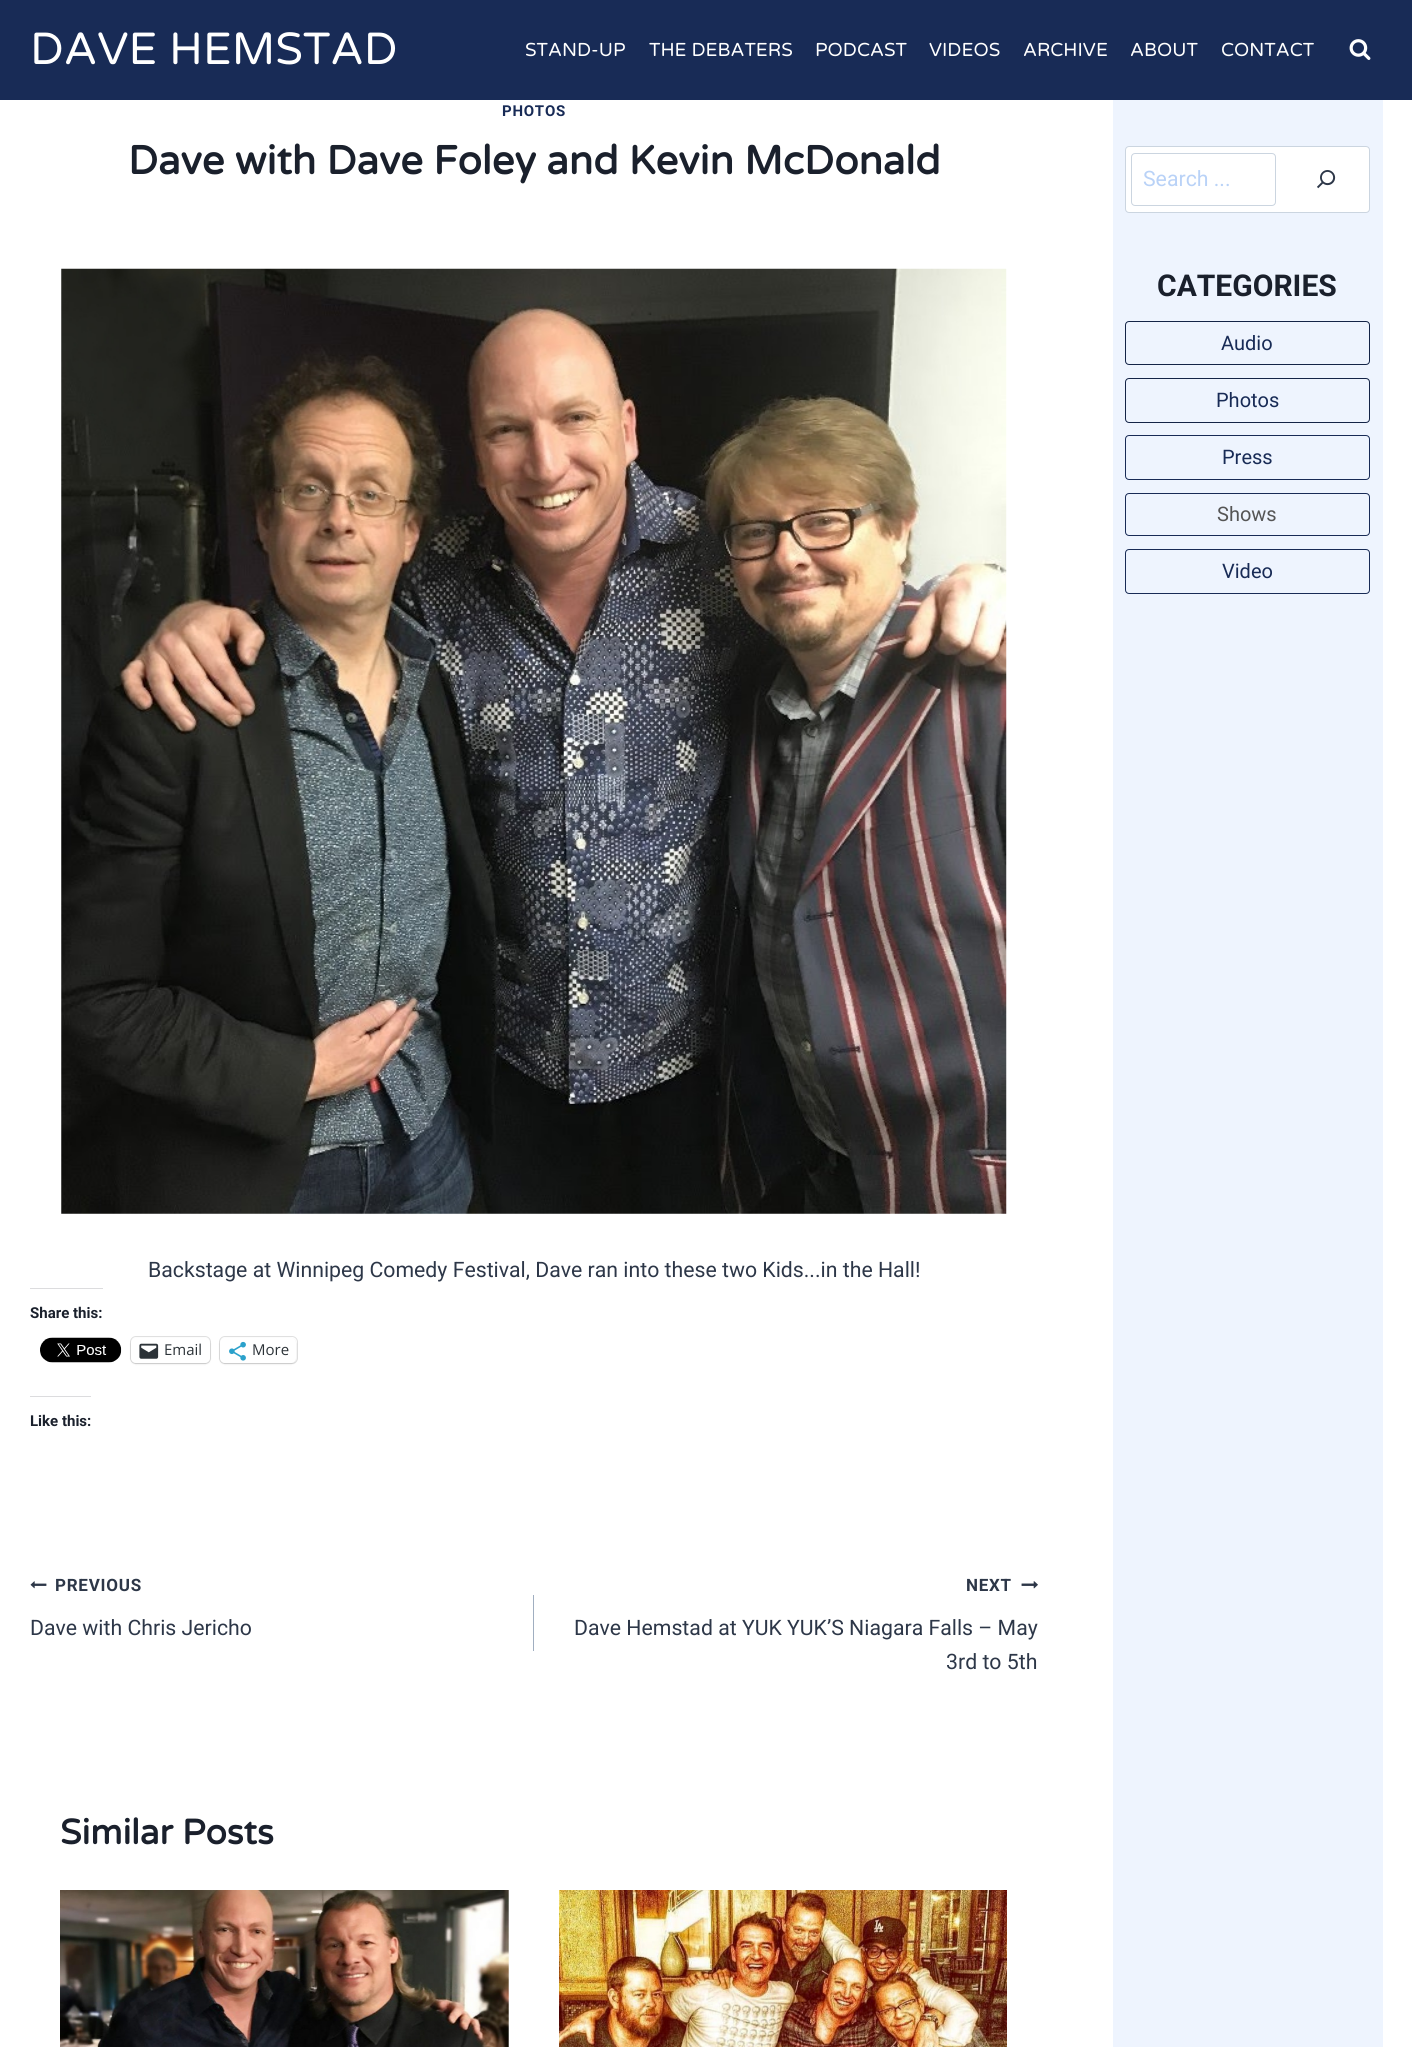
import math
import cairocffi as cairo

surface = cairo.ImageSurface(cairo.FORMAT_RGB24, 1412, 2047)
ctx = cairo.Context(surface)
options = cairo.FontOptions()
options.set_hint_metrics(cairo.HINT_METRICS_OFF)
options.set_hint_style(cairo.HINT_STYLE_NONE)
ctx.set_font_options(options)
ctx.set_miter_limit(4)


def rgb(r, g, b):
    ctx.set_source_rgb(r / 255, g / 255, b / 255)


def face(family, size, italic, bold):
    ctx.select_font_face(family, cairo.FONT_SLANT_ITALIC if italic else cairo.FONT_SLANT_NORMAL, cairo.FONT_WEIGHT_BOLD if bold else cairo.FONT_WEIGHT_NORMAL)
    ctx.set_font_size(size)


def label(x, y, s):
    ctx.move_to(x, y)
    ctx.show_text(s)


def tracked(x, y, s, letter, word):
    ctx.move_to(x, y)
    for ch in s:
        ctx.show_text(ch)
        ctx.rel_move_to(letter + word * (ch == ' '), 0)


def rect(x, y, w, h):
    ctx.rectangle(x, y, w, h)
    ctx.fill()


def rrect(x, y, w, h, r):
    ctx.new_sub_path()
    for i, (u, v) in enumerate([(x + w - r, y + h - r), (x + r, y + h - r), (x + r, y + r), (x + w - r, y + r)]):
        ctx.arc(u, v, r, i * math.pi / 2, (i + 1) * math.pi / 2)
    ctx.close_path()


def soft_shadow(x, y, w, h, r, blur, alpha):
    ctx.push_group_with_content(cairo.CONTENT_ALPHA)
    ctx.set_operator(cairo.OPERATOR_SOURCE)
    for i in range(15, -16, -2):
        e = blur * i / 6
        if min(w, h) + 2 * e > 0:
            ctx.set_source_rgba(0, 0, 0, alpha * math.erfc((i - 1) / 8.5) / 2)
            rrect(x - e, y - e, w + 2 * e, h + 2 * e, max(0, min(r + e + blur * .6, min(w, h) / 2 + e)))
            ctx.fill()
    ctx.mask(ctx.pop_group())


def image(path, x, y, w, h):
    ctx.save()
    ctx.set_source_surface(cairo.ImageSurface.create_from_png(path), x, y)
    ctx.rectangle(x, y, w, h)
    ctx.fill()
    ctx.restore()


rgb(255, 255, 255)
ctx.paint()
rgb(24, 43, 86)
rect(0, 0, 1412, 100)
face('Varela Round', 45, 0, 0)
rgb(255, 255, 255)
label(30, 64, 'DAVE HEMSTAD')
face('Varela Round', 18.75, 0, 0)
label(525, 56, 'STAND-UP')
label(649, 56, 'THE DEBATERS')
label(815, 56, 'PODCAST')
label(929, 56, 'VIDEOS')
label(1023, 56, 'ARCHIVE')
label(1130, 56, 'ABOUT')
label(1221, 56, 'CONTACT')
image('image0.png', 1349, 39, 22, 21)
face('Roboto', 15, 0, 1)
rgb(24, 43, 86)
tracked(502, 116, 'PHOTOS', 0.75, 0)
face('Varela Round', 40, 0, 1)
rgb(26, 32, 44)
label(128, 174, 'Dave with Dave Foley and Kevin McDonald')
image('image1.png', 61, 268, 946, 946)
face('Roboto', 21.25, 0, 0)
rgb(45, 55, 72)
label(148, 1277, 'Backstage at Winnipeg Comedy Festival, Dave ran into these two Kids...in the Hall!')
rgb(220, 220, 222)
rect(30, 1288, 73, 1)
face('Roboto', 15, 0, 1)
rgb(26, 32, 44)
label(30, 1318, 'Share this:')
image('image2.png', 40, 1337, 82, 26)
rrect(130.5, 1336.5, 80, 27, 5.5)
rgb(224, 224, 224)
ctx.set_line_width(1)
ctx.stroke()
rgb(0, 0, 0)
soft_shadow(131, 1339, 79, 25, 5, 1, 0.12)
rgb(255, 255, 255)
rrect(131, 1338, 79, 25, 5)
ctx.fill()
image('image3.png', 139, 1343, 20, 16)
face('Open Sans', 15, 0, 0)
rgb(44, 51, 56)
label(164, 1355, 'Email')
rrect(219.5, 1336.5, 78, 27, 5.5)
rgb(224, 224, 224)
ctx.stroke()
rgb(0, 0, 0)
soft_shadow(220, 1339, 76, 25, 5, 1, 0.12)
rgb(255, 255, 255)
rrect(220, 1338, 76, 25, 5)
ctx.fill()
image('image4.png', 229, 1341, 17, 20)
rgb(44, 51, 56)
label(252, 1355, 'More')
rgb(220, 220, 222)
rect(30, 1396, 61, 1)
face('Roboto', 15, 0, 1)
rgb(26, 32, 44)
label(30, 1426, 'Like this:')
image('image5.png', 30, 1581, 17, 8)
face('Roboto', 17, 0, 1)
rgb(45, 55, 72)
tracked(55, 1591, 'PREVIOUS', 0.75, 0)
face('Roboto', 21.25, 0, 0)
label(30, 1635, 'Dave with Chris Jericho')
rgb(160, 174, 192)
rect(533, 1595, 1, 56)
face('Roboto', 17, 0, 1)
rgb(45, 55, 72)
tracked(966, 1591, 'NEXT', 0.75, 0)
image('image6.png', 1021, 1581, 17, 8)
face('Roboto', 21.25, 0, 0)
label(574, 1635, 'Dave Hemstad at YUK YUK’S Niagara Falls – May')
label(946, 1669, '3rd to 5th')
face('Varela Round', 35, 0, 1)
rgb(26, 32, 44)
label(60, 1844, 'Similar Posts')
image('image7.png', 60, 1890, 449, 157)
image('image8.png', 559, 1890, 448, 157)
rgb(238, 244, 254)
rect(1113, 100, 270, 1947)
rgb(255, 255, 255)
rrect(1125.5, 146.5, 244, 66, 3.5)
ctx.fill_preserve()
rgb(203, 213, 224)
ctx.stroke()
rrect(1131.5, 153.5, 144, 52, 3.5)
ctx.stroke()
face('Roboto', 21.25, 0, 0)
rgb(185, 210, 247)
label(1143, 186, 'Search ...')
image('image9.png', 1317, 170, 19, 19)
face('Roboto', 30, 0, 1)
rgb(26, 32, 44)
label(1157, 296, 'CATEGORIES')
rrect(1125.5, 321.5, 244, 43, 3.5)
rgb(20, 36, 71)
ctx.stroke()
face('Roboto', 20, 0, 0)
rgb(24, 43, 86)
label(1221, 350, 'Audio')
rrect(1125.5, 378.5, 244, 44, 3.5)
rgb(20, 36, 71)
ctx.stroke()
rgb(24, 43, 86)
label(1216, 407, 'Photos')
rrect(1125.5, 435.5, 244, 44, 3.5)
ctx.stroke()
label(1222, 464, 'Press')
rrect(1125.5, 493.5, 244, 42, 3.5)
ctx.stroke()
rgb(85, 85, 85)
label(1217, 521, 'Shows')
rrect(1125.5, 549.5, 244, 44, 3.5)
rgb(24, 43, 86)
ctx.stroke()
label(1222, 578, 'Video')
surface.write_to_png('render.png')
